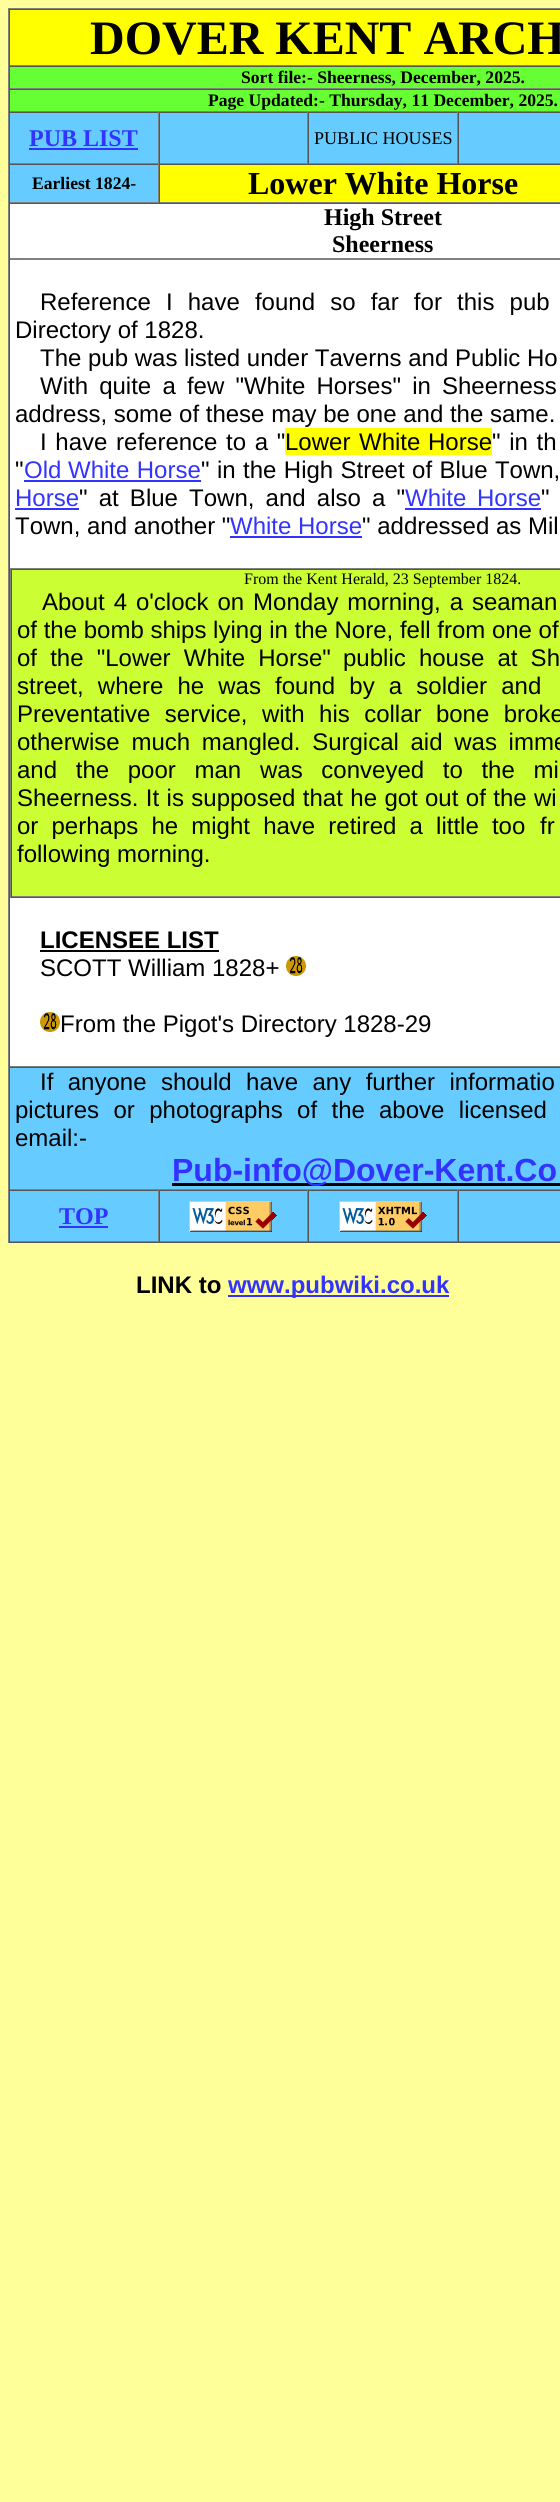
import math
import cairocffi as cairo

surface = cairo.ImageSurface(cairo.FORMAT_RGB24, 560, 2502)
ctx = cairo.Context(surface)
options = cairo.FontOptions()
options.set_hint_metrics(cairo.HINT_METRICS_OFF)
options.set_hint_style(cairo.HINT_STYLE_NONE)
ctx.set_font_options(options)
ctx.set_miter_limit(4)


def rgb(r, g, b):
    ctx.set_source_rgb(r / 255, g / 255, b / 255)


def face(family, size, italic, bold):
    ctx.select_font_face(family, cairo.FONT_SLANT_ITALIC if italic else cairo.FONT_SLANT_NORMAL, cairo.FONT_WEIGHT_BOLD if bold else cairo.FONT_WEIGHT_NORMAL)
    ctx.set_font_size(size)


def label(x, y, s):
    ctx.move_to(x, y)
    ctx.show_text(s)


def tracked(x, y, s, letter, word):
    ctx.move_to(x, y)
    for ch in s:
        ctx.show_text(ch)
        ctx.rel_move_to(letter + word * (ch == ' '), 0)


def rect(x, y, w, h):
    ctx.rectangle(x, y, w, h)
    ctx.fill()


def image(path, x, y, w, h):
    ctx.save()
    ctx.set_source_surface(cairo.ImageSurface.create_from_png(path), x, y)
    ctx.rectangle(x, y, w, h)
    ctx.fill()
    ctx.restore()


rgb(255, 255, 153)
ctx.paint()
rgb(255, 255, 255)
rect(10, 204, 550, 862)
rgb(128, 128, 128)
rect(8, 8, 552, 1)
rgb(85, 85, 85)
rect(8, 1242, 552, 1)
rgb(128, 128, 128)
rect(8, 8, 1, 1235)
rgb(255, 255, 0)
rect(10, 10, 550, 55)
rgb(85, 85, 85)
rect(9, 9, 551, 1)
rgb(128, 128, 128)
rect(9, 65, 551, 1)
rgb(85, 85, 85)
rect(9, 9, 1, 57)
face('Liberation Serif', 48, 0, 1)
rgb(0, 0, 0)
label(90, 54, 'DOVER KENT ARCH')
rgb(102, 255, 51)
rect(10, 67, 550, 21)
rgb(85, 85, 85)
rect(9, 66, 551, 1)
rgb(128, 128, 128)
rect(9, 88, 551, 1)
rgb(85, 85, 85)
rect(9, 66, 1, 23)
face('Liberation Serif', 17.6, 0, 1)
rgb(0, 0, 0)
label(241, 83, 'Sort file:- Sheerness, December, 2025.')
rgb(102, 255, 51)
rect(10, 90, 550, 21)
rgb(85, 85, 85)
rect(9, 89, 551, 1)
rgb(128, 128, 128)
rect(9, 111, 551, 1)
rgb(85, 85, 85)
rect(9, 89, 1, 23)
rgb(0, 0, 0)
label(208, 106, 'Page Updated:- Thursday, 11 December, 2025.')
rgb(102, 204, 255)
rect(10, 113, 148, 50)
rgb(85, 85, 85)
rect(9, 112, 551, 1)
rgb(128, 128, 128)
rect(158, 112, 1, 52)
rect(9, 163, 150, 1)
rgb(85, 85, 85)
rect(9, 112, 1, 52)
face('Liberation Serif', 24, 0, 1)
rgb(51, 51, 255)
label(29, 146, 'PUB LIST')
rect(29, 148, 109, 2)
rgb(102, 204, 255)
rect(160, 113, 147, 50)
rgb(128, 128, 128)
rect(307, 112, 1, 52)
rect(159, 163, 149, 1)
rgb(85, 85, 85)
rect(159, 112, 1, 52)
rgb(102, 204, 255)
rect(309, 113, 148, 50)
rgb(128, 128, 128)
rect(457, 112, 1, 52)
rect(308, 163, 252, 1)
rgb(85, 85, 85)
rect(308, 112, 1, 52)
face('Liberation Serif', 18, 0, 0)
rgb(0, 0, 0)
label(314, 144, 'PUBLIC HOUSES')
rgb(102, 204, 255)
rect(459, 113, 101, 50)
rgb(85, 85, 85)
rect(458, 112, 1, 52)
rgb(102, 204, 255)
rect(10, 165, 148, 37)
rgb(85, 85, 85)
rect(9, 164, 551, 1)
rgb(128, 128, 128)
rect(158, 164, 1, 39)
rect(9, 202, 551, 1)
rgb(85, 85, 85)
rect(9, 164, 1, 39)
face('Liberation Serif', 17.6, 0, 1)
rgb(0, 0, 0)
label(32, 189, 'Earliest 1824-')
rgb(255, 255, 0)
rect(160, 165, 400, 37)
rgb(85, 85, 85)
rect(159, 164, 1, 39)
face('Liberation Serif', 32, 0, 1)
rgb(0, 0, 0)
label(248, 194, 'Lower White Horse')
rgb(85, 85, 85)
rect(9, 203, 551, 1)
rgb(128, 128, 128)
rect(9, 1066, 551, 1)
rgb(85, 85, 85)
rect(9, 203, 1, 864)
face('Liberation Serif', 24, 0, 1)
rgb(0, 0, 0)
label(324, 225, 'High Street')
label(332, 252, 'Sheerness')
rgb(128, 128, 128)
rect(10, 258, 550, 2)
face('Liberation Sans', 24, 0, 0)
rgb(0, 0, 0)
tracked(40, 310, 'Reference I have found so far for this pub', 0, 8.5)
label(15, 338, 'Directory of 1828.')
label(40, 366, 'The pub was listed under Taverns and Public Ho')
tracked(40, 394, 'With quite a few "White Horses" in Sheerness', 0, 4.5)
label(15, 422, 'address, some of these may be one and the same.')
tracked(40, 450, 'I have reference to a "', 0, 2)
rgb(255, 255, 0)
rect(285, 428, 207, 27)
rgb(0, 0, 0)
tracked(285, 450, 'Lower White', 0, 2)
label(428, 450, 'Horse')
tracked(492, 450, '" in th', 0, 2)
label(15, 478, '"')
rgb(51, 51, 255)
label(24, 478, 'Old')
rect(24, 480, 177, 2)
tracked(68, 478, 'White Horse', 0, 0.75)
rgb(0, 0, 0)
tracked(201, 478, '" in the High Street of Blue Town,', 0, 0.75)
rgb(51, 51, 255)
label(15, 506, 'Horse')
rect(15, 508, 64, 2)
rgb(0, 0, 0)
tracked(79, 506, '" at Blue Town, and also a "', 0, 4.5)
rgb(51, 51, 255)
label(405, 506, 'White')
label(477, 506, 'Horse')
rect(405, 508, 136, 2)
rgb(0, 0, 0)
tracked(541, 506, '"', 0, 4.5)
label(15, 534, 'Town, and another "')
rgb(51, 51, 255)
label(230, 534, 'White Horse')
rect(230, 536, 132, 2)
rgb(0, 0, 0)
label(362, 534, '" addressed as Mil')
rgb(128, 128, 128)
rect(10, 568, 550, 1)
rgb(85, 85, 85)
rect(10, 897, 550, 1)
rgb(128, 128, 128)
rect(10, 568, 1, 330)
rgb(204, 255, 51)
rect(12, 570, 548, 326)
rgb(85, 85, 85)
rect(11, 569, 549, 1)
rgb(128, 128, 128)
rect(11, 896, 549, 1)
rgb(85, 85, 85)
rect(11, 569, 1, 328)
face('Liberation Serif', 16, 0, 0)
rgb(0, 0, 0)
label(244, 584, 'From the Kent Herald, 23 September 1824.')
face('Liberation Sans', 24, 0, 0)
tracked(42, 610, 'About 4 o\'clock on Monday morning, a seaman', 0, 2.25)
label(17, 638, 'of the bomb ships lying in the Nore, fell from one of')
tracked(17, 666, 'of the "Lower White Horse"', 0, 6.5)
tracked(343, 666, 'public house at Sh', 0, 6.5)
tracked(17, 694, 'street, where he was found by a soldier and', 0, 7.5)
tracked(17, 722, 'Preventative service, with his collar bone broke', 0, 7.75)
tracked(17, 750, 'otherwise much mangled. Surgical aid was imme', 0, 5)
tracked(17, 778, 'and the poor man', 0, 12)
tracked(260, 778, 'was conveyed to the mi', 0, 12)
tracked(17, 806, 'Sheerness. It is supposed that he got', 0, 0.75)
tracked(425, 806, 'out of the wi', 0, 0.75)
tracked(17, 834, 'or perhaps he might have retired a little too', 0, 6.5)
tracked(540, 834, 'fr', 0, 6.5)
label(17, 862, 'following morning.')
face('Liberation Sans', 24, 0, 1)
label(40, 948, 'LICENSEE LIST')
rect(40, 950, 179, 2)
face('Liberation Sans', 24, 0, 0)
label(40, 976, 'SCOTT William 1828+')
image('image0.png', 286, 956, 20, 20)
image('image0.png', 40, 1012, 20, 20)
label(60, 1032, 'From the Pigot\'s Directory 1828-29')
rgb(102, 204, 255)
rect(10, 1068, 550, 121)
rgb(85, 85, 85)
rect(9, 1067, 551, 1)
rgb(128, 128, 128)
rect(9, 1189, 551, 1)
rgb(85, 85, 85)
rect(9, 1067, 1, 123)
rgb(0, 0, 0)
tracked(40, 1090, 'If anyone should have any further informatio', 0, 7.75)
tracked(15, 1118, 'pictures or photographs of the', 0, 7.75)
tracked(379, 1118, 'above licensed', 0, 7.75)
label(15, 1146, 'email:-')
rect(172, 1183, 388, 3)
face('Liberation Sans', 32, 0, 1)
rgb(51, 51, 255)
label(172, 1181, 'Pub-info@Dover-Kent.Co')
rgb(102, 204, 255)
rect(160, 1191, 147, 50)
rgb(85, 85, 85)
rect(9, 1190, 551, 1)
rgb(128, 128, 128)
rect(307, 1190, 1, 52)
rect(159, 1241, 149, 1)
rgb(85, 85, 85)
rect(159, 1190, 1, 52)
image('image1.png', 189, 1201, 88, 31)
rgb(102, 204, 255)
rect(309, 1191, 148, 50)
rgb(128, 128, 128)
rect(457, 1190, 1, 52)
rect(308, 1241, 252, 1)
rgb(85, 85, 85)
rect(308, 1190, 1, 52)
image('image2.png', 339, 1201, 88, 31)
rgb(102, 204, 255)
rect(10, 1191, 148, 50)
rgb(128, 128, 128)
rect(158, 1190, 1, 52)
rect(9, 1241, 150, 1)
rgb(85, 85, 85)
rect(9, 1190, 1, 52)
face('Liberation Serif', 24, 0, 1)
rgb(51, 51, 255)
label(59, 1224, 'TOP')
rect(59, 1226, 49, 2)
rgb(102, 204, 255)
rect(459, 1191, 101, 50)
rgb(85, 85, 85)
rect(458, 1190, 1, 52)
face('Liberation Sans', 24, 0, 1)
rgb(0, 0, 0)
label(136, 1293, 'LINK to')
rgb(51, 51, 255)
rect(228, 1295, 221, 2)
label(228, 1293, 'www.pubwiki.co.uk')
surface.write_to_png('render.png')
